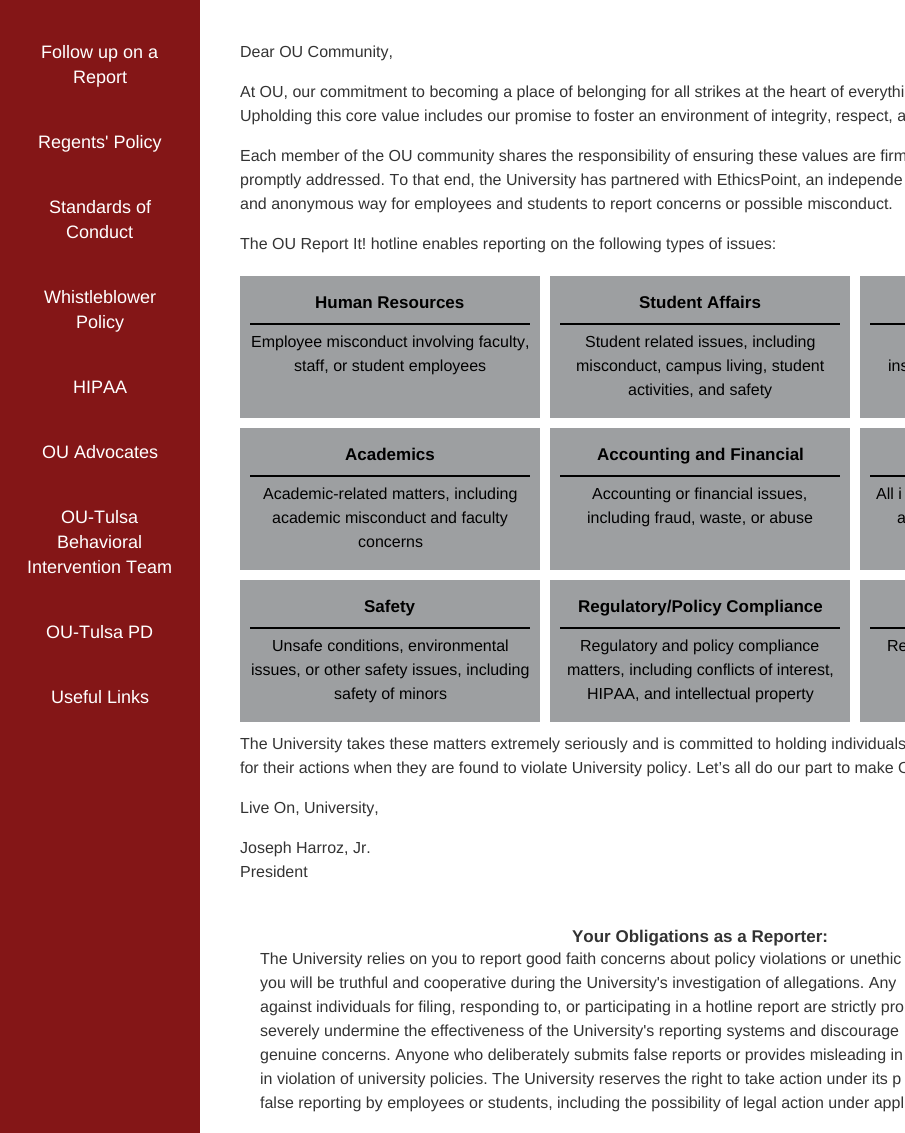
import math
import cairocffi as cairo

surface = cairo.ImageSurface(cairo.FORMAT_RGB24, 905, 1133)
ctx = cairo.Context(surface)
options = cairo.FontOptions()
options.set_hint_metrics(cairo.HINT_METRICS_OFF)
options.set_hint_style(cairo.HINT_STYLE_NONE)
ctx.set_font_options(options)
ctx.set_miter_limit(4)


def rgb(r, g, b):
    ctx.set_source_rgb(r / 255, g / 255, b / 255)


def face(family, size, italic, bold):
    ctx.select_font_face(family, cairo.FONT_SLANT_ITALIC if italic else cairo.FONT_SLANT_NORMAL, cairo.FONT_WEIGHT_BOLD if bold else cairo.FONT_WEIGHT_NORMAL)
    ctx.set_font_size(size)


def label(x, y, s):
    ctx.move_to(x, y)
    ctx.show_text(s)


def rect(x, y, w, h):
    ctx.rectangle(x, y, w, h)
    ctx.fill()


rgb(255, 255, 255)
ctx.paint()
rgb(132, 22, 23)
rect(0, 0, 200, 1133)
face('Liberation Sans', 18, 0, 0)
rgb(255, 255, 255)
label(41, 58, 'Follow up on a')
label(73, 83, 'Report')
label(38, 148, 'Regents\' Policy')
label(49, 213, 'Standards of')
label(66, 238, 'Conduct')
label(44, 303, 'Whistleblower')
label(76, 328, 'Policy')
label(73, 393, 'HIPAA')
label(42, 458, 'OU Advocates')
label(61, 523, 'OU-Tulsa')
label(57, 548, 'Behavioral')
label(27, 573, 'Intervention Team')
label(46, 638, 'OU-Tulsa PD')
label(51, 703, 'Useful Links')
face('Liberation Sans', 16, 0, 0)
rgb(51, 51, 51)
label(240, 57, 'Dear OU Community,')
label(240, 97, 'At OU, our commitment to becoming a place of belonging for all strikes at the heart of everythi')
label(240, 121, 'Upholding this core value includes our promise to foster an environment of integrity, respect, a')
label(240, 161, 'Each member of the OU community shares the responsibility of ensuring these values are firm')
label(240, 185, 'promptly addressed. To that end, the University has partnered with EthicsPoint, an independe')
label(240, 209, 'and anonymous way for employees and students to report concerns or possible misconduct.')
label(240, 249, 'The OU Report It! hotline enables reporting on the following types of issues:')
rgb(157, 159, 161)
rect(240, 276, 300, 142)
rgb(0, 0, 0)
rect(250, 323, 280, 2)
face('Liberation Sans', 17, 0, 1)
label(315, 308, 'Human Resources')
face('Liberation Sans', 16, 0, 0)
label(251, 347, 'Employee misconduct involving faculty,')
label(294, 371, 'staff, or student employees')
rgb(157, 159, 161)
rect(550, 276, 300, 142)
rgb(0, 0, 0)
rect(560, 323, 280, 2)
face('Liberation Sans', 17, 0, 1)
label(639, 308, 'Student Affairs')
face('Liberation Sans', 16, 0, 0)
label(585, 347, 'Student related issues, including')
label(576, 371, 'misconduct, campus living, student')
label(628, 395, 'activities, and safety')
rgb(157, 159, 161)
rect(860, 276, 45, 142)
rgb(0, 0, 0)
rect(870, 323, 35, 2)
label(888, 371, 'ins')
rgb(157, 159, 161)
rect(240, 428, 300, 142)
rgb(0, 0, 0)
rect(250, 475, 280, 2)
face('Liberation Sans', 17, 0, 1)
label(345, 460, 'Academics')
face('Liberation Sans', 16, 0, 0)
label(263, 499, 'Academic-related matters, including')
label(272, 523, 'academic misconduct and faculty')
label(358, 547, 'concerns')
rgb(157, 159, 161)
rect(550, 428, 300, 142)
rgb(0, 0, 0)
rect(560, 475, 280, 2)
face('Liberation Sans', 17, 0, 1)
label(597, 460, 'Accounting and Financial')
face('Liberation Sans', 16, 0, 0)
label(592, 499, 'Accounting or financial issues,')
label(587, 523, 'including fraud, waste, or abuse')
rgb(157, 159, 161)
rect(860, 428, 45, 142)
rgb(0, 0, 0)
rect(870, 475, 35, 2)
label(876, 499, 'All i')
label(897, 523, 'a')
rgb(157, 159, 161)
rect(240, 580, 300, 142)
rgb(0, 0, 0)
rect(250, 627, 280, 2)
face('Liberation Sans', 17, 0, 1)
label(364, 612, 'Safety')
face('Liberation Sans', 16, 0, 0)
label(272, 651, 'Unsafe conditions, environmental')
label(251, 675, 'issues, or other safety issues, including')
label(334, 699, 'safety of minors')
rgb(157, 159, 161)
rect(550, 580, 300, 142)
rgb(0, 0, 0)
rect(560, 627, 280, 2)
face('Liberation Sans', 17, 0, 1)
label(578, 612, 'Regulatory/Policy Compliance')
face('Liberation Sans', 16, 0, 0)
label(580, 651, 'Regulatory and policy compliance')
label(567, 675, 'matters, including conflicts of interest,')
label(587, 699, 'HIPAA, and intellectual property')
rgb(157, 159, 161)
rect(860, 580, 45, 142)
rgb(0, 0, 0)
rect(870, 627, 35, 2)
label(887, 651, 'Re')
rgb(51, 51, 51)
label(240, 749, 'The University takes these matters extremely seriously and is committed to holding individuals')
label(240, 773, 'for their actions when they are found to violate University policy. Let’s all do our part to make O')
label(240, 813, 'Live On, University,')
label(240, 853, 'Joseph Harroz, Jr.')
label(240, 877, 'President')
face('Liberation Sans', 17, 0, 1)
label(572, 942, 'Your Obligations as a Reporter:')
face('Liberation Sans', 16, 0, 0)
label(260, 964, 'The University relies on you to report good faith concerns about policy violations or unethic')
label(260, 988, 'you will be truthful and cooperative during the University\'s investigation of allegations. Any')
label(260, 1012, 'against individuals for filing, responding to, or participating in a hotline report are strictly pro')
label(260, 1036, 'severely undermine the effectiveness of the University\'s reporting systems and discourage')
label(260, 1060, 'genuine concerns. Anyone who deliberately submits false reports or provides misleading in')
label(260, 1084, 'in violation of university policies. The University reserves the right to take action under its p')
label(260, 1108, 'false reporting by employees or students, including the possibility of legal action under appl')
surface.write_to_png('render.png')
